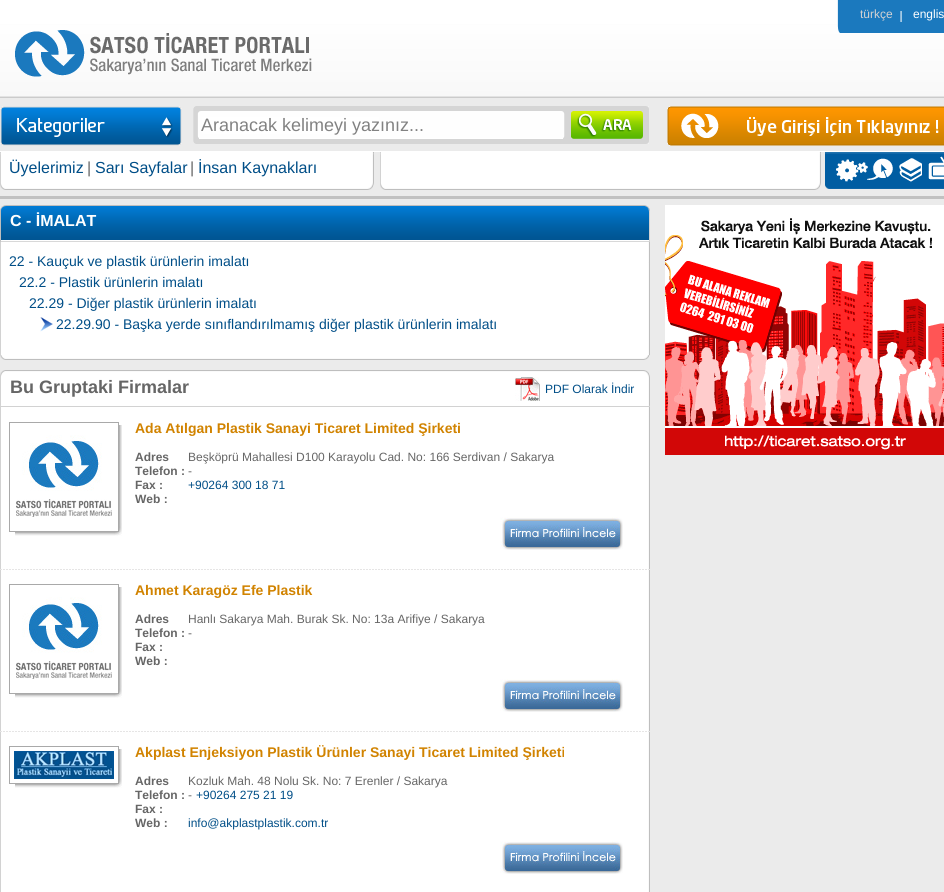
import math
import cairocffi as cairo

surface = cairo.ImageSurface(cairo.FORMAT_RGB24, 944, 892)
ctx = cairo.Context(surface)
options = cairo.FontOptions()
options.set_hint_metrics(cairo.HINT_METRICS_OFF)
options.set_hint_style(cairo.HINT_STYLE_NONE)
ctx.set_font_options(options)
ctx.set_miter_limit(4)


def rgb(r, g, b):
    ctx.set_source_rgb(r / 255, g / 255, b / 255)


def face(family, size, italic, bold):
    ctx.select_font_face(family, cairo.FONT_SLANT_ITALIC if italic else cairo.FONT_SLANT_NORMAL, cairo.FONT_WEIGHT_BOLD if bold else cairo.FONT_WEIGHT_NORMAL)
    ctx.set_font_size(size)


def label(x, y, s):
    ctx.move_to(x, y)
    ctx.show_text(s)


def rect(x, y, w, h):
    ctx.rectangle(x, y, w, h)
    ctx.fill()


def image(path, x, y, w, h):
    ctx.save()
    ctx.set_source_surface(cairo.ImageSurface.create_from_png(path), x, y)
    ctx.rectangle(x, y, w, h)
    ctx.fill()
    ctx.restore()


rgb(235, 235, 235)
ctx.paint()
image('image0.png', 0, 0, 944, 98)
image('image1.png', 837, 0, 107, 33)
face('Liberation Sans', 12, 0, 0)
rgb(212, 210, 210)
label(860, 18, 'türkçe')
rgb(255, 255, 255)
label(913, 18, 'englis')
image('image2.png', 15, 30, 297, 47)
image('image3.png', 0, 106, 182, 40)
image('image4.png', 193, 106, 456, 38)
rect(199, 138, 364, 1)
face('Liberation Sans', 18, 0, 0)
rgb(130, 130, 130)
label(201, 131, 'Aranacak kelimeyi yazınız...')
image('image5.png', 571, 111, 72, 28)
image('image6.png', 667, 106, 277, 40)
rgb(255, 255, 255)
rect(0, 151, 944, 1)
image('image7.png', 0, 152, 374, 38)
face('Liberation Sans', 16, 0, 0)
rgb(0, 78, 135)
label(9, 173, 'Üyelerimiz')
rgb(102, 102, 102)
label(87, 173, '|')
rgb(0, 78, 135)
label(95, 173, 'Sarı Sayfalar')
rgb(102, 102, 102)
label(190, 173, '|')
rgb(0, 78, 135)
label(198, 173, 'İnsan Kaynakları')
image('image8.png', 380, 152, 441, 38)
image('image9.png', 825, 152, 119, 37)
rgb(193, 193, 193)
rect(0, 196, 944, 3)
image('image10.png', 0, 242, 650, 118)
image('image11.png', 0, 205, 650, 37)
face('Liberation Sans', 16, 0, 1)
rgb(255, 255, 255)
label(10, 226, 'C - İMALAT')
image('image12.png', 0, 279, 650, 76)
face('Liberation Sans', 14, 0, 0)
rgb(0, 78, 135)
label(9, 266, '22 - Kauçuk ve plastik ürünlerin imalatı')
label(19, 287, '22.2 - Plastik ürünlerin imalatı')
label(29, 308, '22.29 - Diğer plastik ürünlerin imalatı')
image('image13.png', 40, 317, 13, 15)
label(56, 329, '22.29.90 - Başka yerde sınıflandırılmamış diğer plastik ürünlerin imalatı')
image('image14.png', 0, 407, 650, 485)
image('image15.png', 0, 370, 650, 37)
face('Liberation Sans', 18, 0, 1)
rgb(102, 102, 102)
label(10, 393, 'Bu Gruptaki Firmalar')
image('image16.png', 515, 377, 25, 24)
face('Liberation Sans', 12, 0, 0)
rgb(0, 78, 135)
label(545, 393, 'PDF Olarak İndir')
image('image17.png', 0, 440, 650, 451)
image('image18.png', 15, 425, 107, 111)
ctx.rectangle(9.5, 422.5, 109, 109)
rgb(169, 169, 169)
ctx.set_line_width(1)
ctx.stroke()
image('image19.png', 16, 435, 96, 82)
face('Liberation Sans', 14, 0, 1)
rgb(209, 131, 0)
label(135, 433, 'Ada Atılgan Plastik Sanayi Ticaret Limited Şirketi')
face('Liberation Sans', 12, 0, 1)
rgb(102, 102, 102)
label(135, 461, 'Adres')
face('Liberation Sans', 12, 0, 0)
label(188, 461, 'Beşköprü Mahallesi D100 Karayolu Cad. No: 166 Serdivan / Sakarya')
face('Liberation Sans', 12, 0, 1)
label(135, 475, 'Telefon :')
face('Liberation Sans', 12, 0, 0)
label(188, 475, '-')
face('Liberation Sans', 12, 0, 1)
label(135, 489, 'Fax :')
face('Liberation Sans', 12, 0, 0)
rgb(0, 78, 135)
label(188, 489, '+90264 300 18 71')
face('Liberation Sans', 12, 0, 1)
rgb(102, 102, 102)
label(135, 503, 'Web :')
image('image20.png', 500, 517, 123, 33)
image('image21.png', 0, 569, 650, 1)
image('image18.png', 15, 587, 107, 111)
ctx.rectangle(9.5, 584.5, 109, 109)
rgb(169, 169, 169)
ctx.stroke()
image('image19.png', 16, 597, 96, 82)
face('Liberation Sans', 14, 0, 1)
rgb(209, 131, 0)
label(135, 595, 'Ahmet Karagöz Efe Plastik')
face('Liberation Sans', 12, 0, 1)
rgb(102, 102, 102)
label(135, 623, 'Adres')
face('Liberation Sans', 12, 0, 0)
label(188, 623, 'Hanlı Sakarya Mah. Burak Sk. No: 13a Arifiye / Sakarya')
face('Liberation Sans', 12, 0, 1)
label(135, 637, 'Telefon :')
face('Liberation Sans', 12, 0, 0)
label(188, 637, '-')
face('Liberation Sans', 12, 0, 1)
label(135, 651, 'Fax :')
label(135, 665, 'Web :')
image('image20.png', 500, 679, 123, 33)
image('image21.png', 0, 731, 650, 1)
image('image22.png', 15, 749, 107, 39)
ctx.rectangle(9.5, 746.5, 109, 37)
rgb(169, 169, 169)
ctx.stroke()
image('image23.png', 14, 751, 100, 28)
face('Liberation Sans', 14, 0, 1)
rgb(209, 131, 0)
label(135, 757, 'Akplast Enjeksiyon Plastik Ürünler Sanayi Ticaret Limited Şirketi')
face('Liberation Sans', 12, 0, 1)
rgb(102, 102, 102)
label(135, 785, 'Adres')
face('Liberation Sans', 12, 0, 0)
label(188, 785, 'Kozluk Mah. 48 Nolu Sk. No: 7 Erenler / Sakarya')
face('Liberation Sans', 12, 0, 1)
label(135, 799, 'Telefon :')
face('Liberation Sans', 12, 0, 0)
label(188, 799, '-')
rgb(0, 78, 135)
label(196, 799, '+90264 275 21 19')
face('Liberation Sans', 12, 0, 1)
rgb(102, 102, 102)
label(135, 813, 'Fax :')
label(135, 827, 'Web :')
face('Liberation Sans', 12, 0, 0)
rgb(0, 78, 135)
label(188, 827, 'info@akplastplastik.com.tr')
image('image20.png', 500, 841, 123, 33)
rgb(255, 255, 255)
rect(665, 205, 279, 13)
image('image24.png', 665, 218, 279, 237)
surface.write_to_png('render.png')
